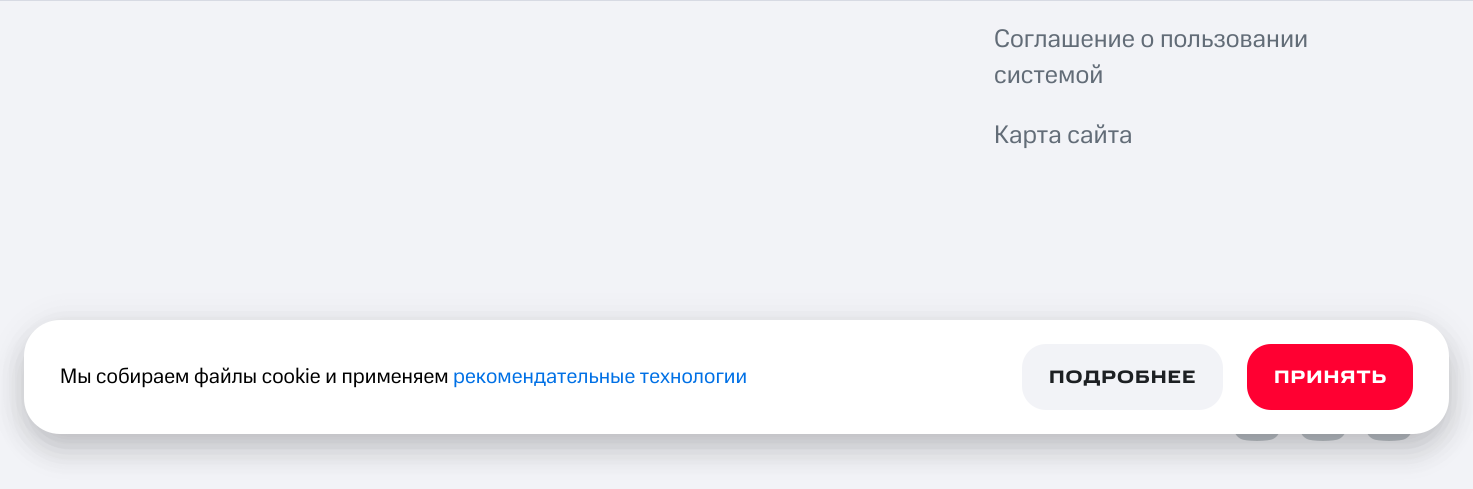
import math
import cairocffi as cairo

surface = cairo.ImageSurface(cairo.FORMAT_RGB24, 1473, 489)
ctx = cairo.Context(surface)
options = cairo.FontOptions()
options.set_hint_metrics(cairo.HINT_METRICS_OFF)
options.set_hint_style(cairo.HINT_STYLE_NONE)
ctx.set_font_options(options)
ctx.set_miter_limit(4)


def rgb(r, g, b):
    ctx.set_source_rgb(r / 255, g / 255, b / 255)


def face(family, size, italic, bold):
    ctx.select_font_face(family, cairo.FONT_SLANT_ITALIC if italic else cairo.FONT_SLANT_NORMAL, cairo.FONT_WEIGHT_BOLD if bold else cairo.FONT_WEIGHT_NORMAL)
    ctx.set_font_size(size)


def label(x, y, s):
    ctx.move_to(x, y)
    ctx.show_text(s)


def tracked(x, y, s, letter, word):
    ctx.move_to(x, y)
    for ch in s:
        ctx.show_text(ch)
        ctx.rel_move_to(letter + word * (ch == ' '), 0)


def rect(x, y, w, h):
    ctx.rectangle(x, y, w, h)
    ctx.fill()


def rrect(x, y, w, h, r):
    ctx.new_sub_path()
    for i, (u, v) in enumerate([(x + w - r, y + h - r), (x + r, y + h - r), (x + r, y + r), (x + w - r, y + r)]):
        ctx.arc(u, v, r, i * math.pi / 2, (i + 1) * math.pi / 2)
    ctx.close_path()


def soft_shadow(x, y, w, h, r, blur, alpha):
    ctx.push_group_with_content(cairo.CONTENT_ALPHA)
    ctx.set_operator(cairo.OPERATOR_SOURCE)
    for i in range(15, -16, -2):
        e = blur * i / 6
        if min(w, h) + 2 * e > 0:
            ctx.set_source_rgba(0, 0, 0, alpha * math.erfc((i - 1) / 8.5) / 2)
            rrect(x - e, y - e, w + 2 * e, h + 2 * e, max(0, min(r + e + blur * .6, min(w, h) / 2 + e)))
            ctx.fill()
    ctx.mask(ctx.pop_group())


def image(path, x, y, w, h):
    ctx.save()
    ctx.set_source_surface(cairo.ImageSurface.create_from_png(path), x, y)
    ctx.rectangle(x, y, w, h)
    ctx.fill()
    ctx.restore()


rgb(242, 243, 247)
ctx.paint()
ctx.set_source_rgba(0.737, 0.765, 0.816, 0.5)
rect(0, 0, 1473, 1)
face('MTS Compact', 25.5, 0, 0)
rgb(98, 108, 119)
label(994, 47, 'Соглашение о пользовании')
label(994, 83, 'системой')
label(994, 143, 'Карта сайта')
image('image0.png', 1235, 434, 44, 7)
image('image1.png', 1301, 434, 44, 7)
image('image2.png', 1367, 434, 44, 7)
rgb(0, 0, 0)
soft_shadow(24, 338, 1425, 114, 36, 15, 0.14)
soft_shadow(24, 326, 1425, 114, 36, 18, 0.12)
rgb(255, 255, 255)
rrect(24, 320, 1425, 114, 36)
ctx.fill()
face('MTS Compact', 21, 0, 0)
rgb(0, 0, 0)
label(60, 383, 'Мы собираем файлы cookie и применяем')
rgb(0, 112, 229)
label(453, 383, 'рекомендательные технологии')
rgb(242, 243, 247)
rrect(1022, 344, 201, 66, 24)
ctx.fill()
face('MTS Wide', 18, 0, 1)
rgb(29, 32, 35)
tracked(1049, 383, 'ПОДРОБНЕЕ', 1, 0)
rgb(255, 0, 50)
rrect(1247, 344, 166, 66, 24)
ctx.fill()
rgb(255, 255, 255)
tracked(1274, 383, 'ПРИНЯТЬ', 1, 0)
surface.write_to_png('render.png')
